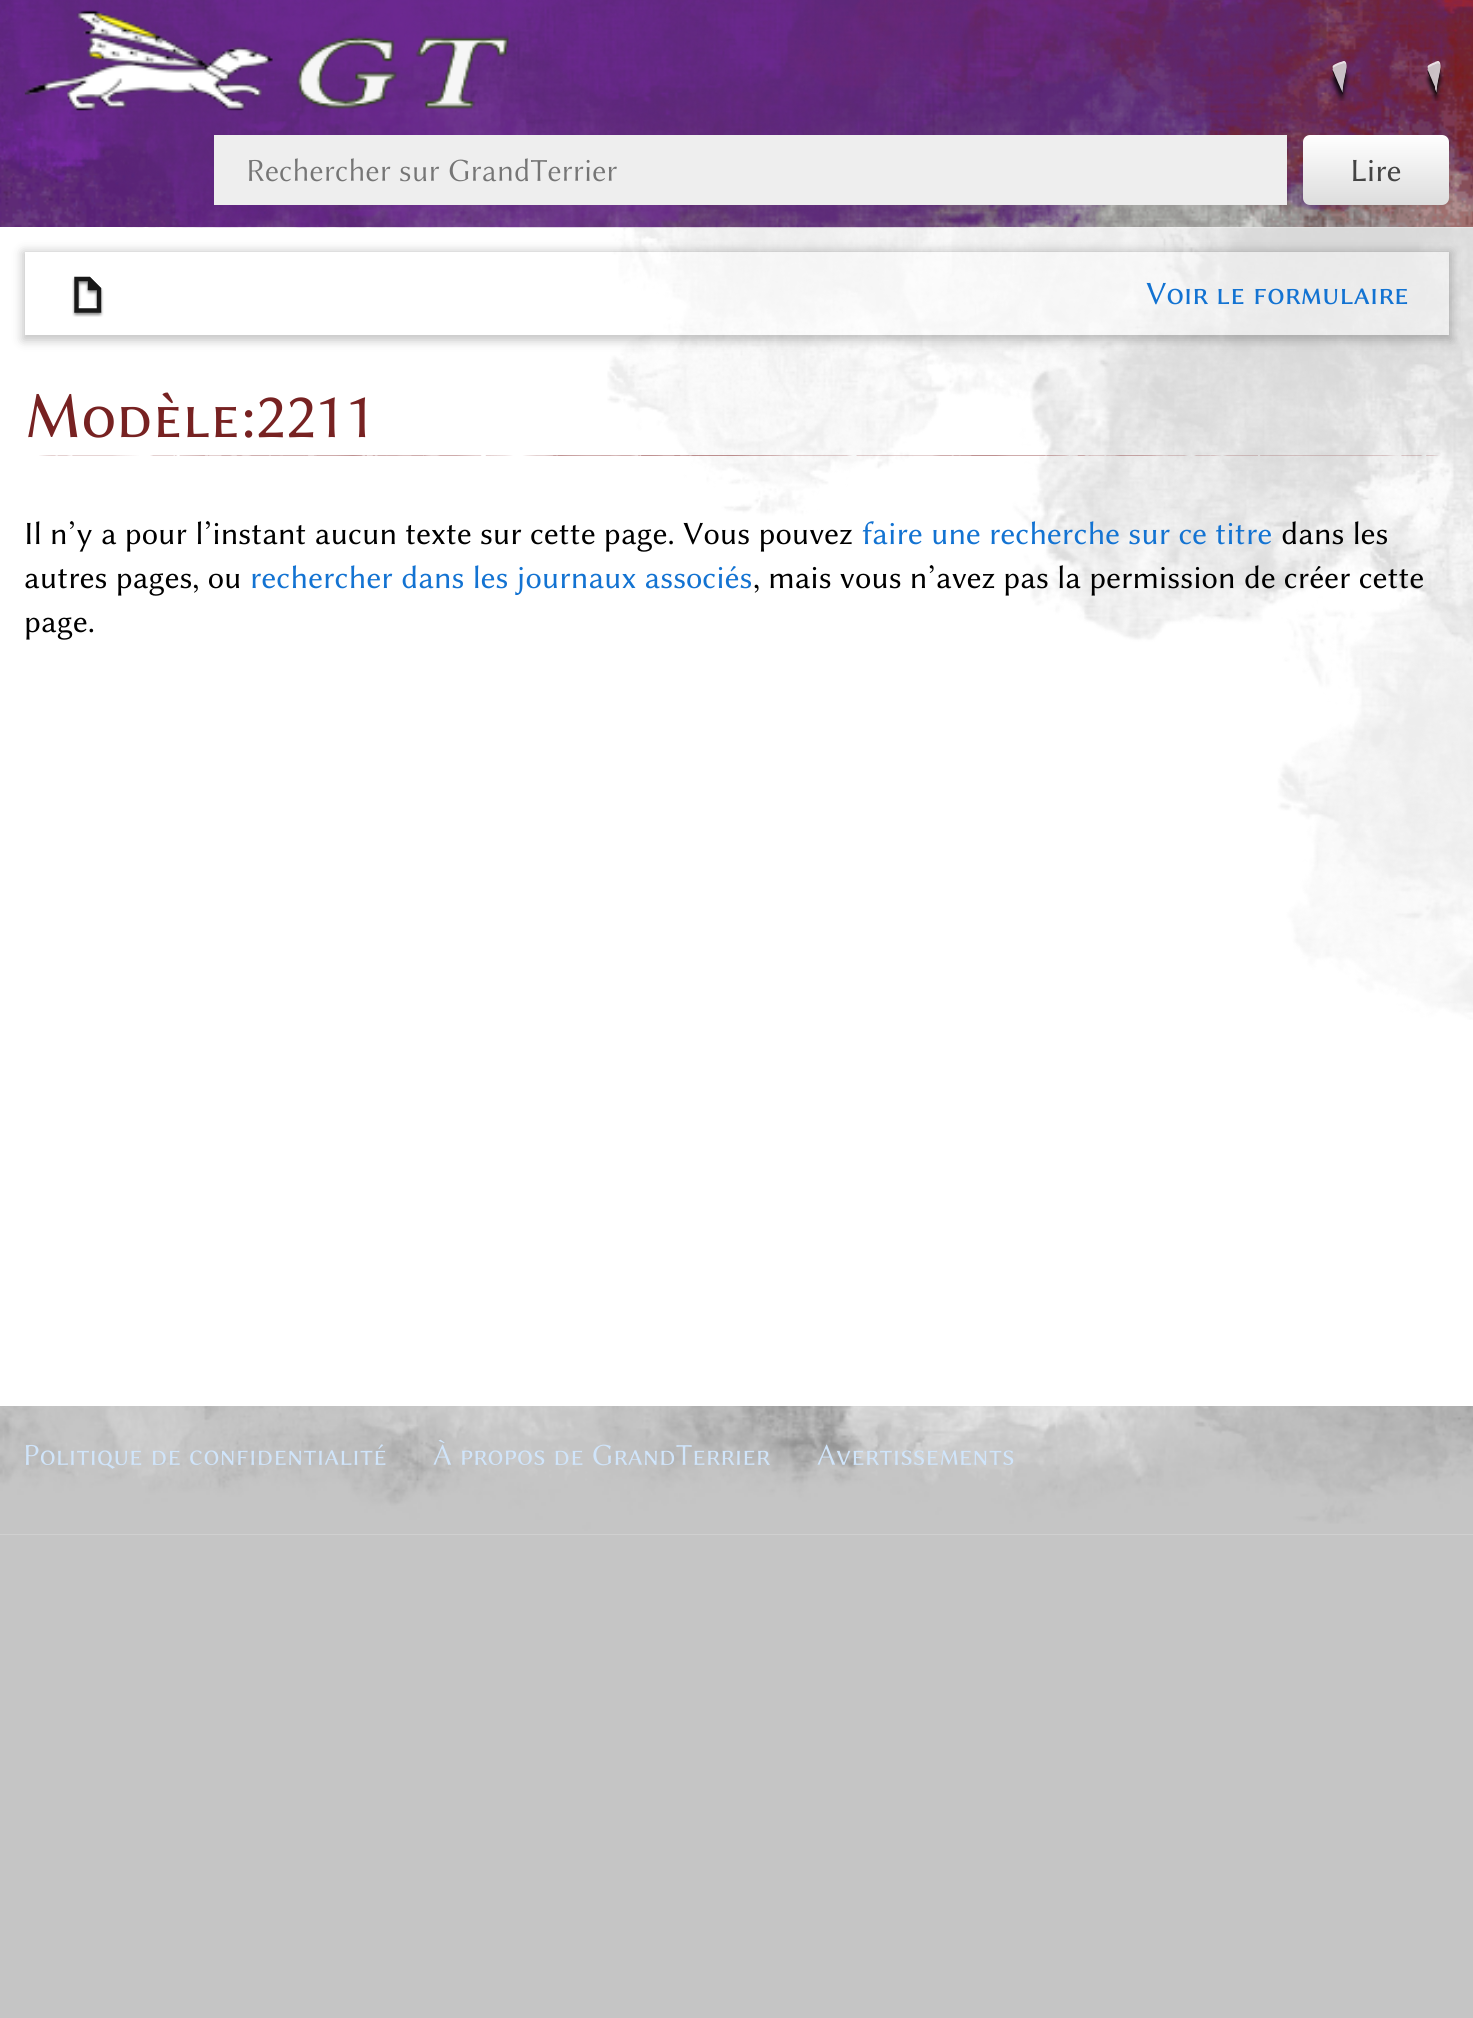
import math
import cairocffi as cairo

surface = cairo.ImageSurface(cairo.FORMAT_RGB24, 1473, 2018)
ctx = cairo.Context(surface)
options = cairo.FontOptions()
options.set_hint_metrics(cairo.HINT_METRICS_OFF)
options.set_hint_style(cairo.HINT_STYLE_NONE)
ctx.set_font_options(options)
ctx.set_miter_limit(4)


def rgb(r, g, b):
    ctx.set_source_rgb(r / 255, g / 255, b / 255)


def face(family, size, italic, bold):
    ctx.select_font_face(family, cairo.FONT_SLANT_ITALIC if italic else cairo.FONT_SLANT_NORMAL, cairo.FONT_WEIGHT_BOLD if bold else cairo.FONT_WEIGHT_NORMAL)
    ctx.set_font_size(size)


def label(x, y, s):
    ctx.move_to(x, y)
    ctx.show_text(s)


def rect(x, y, w, h):
    ctx.rectangle(x, y, w, h)
    ctx.fill()


def rrect(x, y, w, h, r):
    ctx.new_sub_path()
    for i, (u, v) in enumerate([(x + w - r, y + h - r), (x + r, y + h - r), (x + r, y + r), (x + w - r, y + r)]):
        ctx.arc(u, v, r, i * math.pi / 2, (i + 1) * math.pi / 2)
    ctx.close_path()


def soft_shadow(x, y, w, h, r, blur, alpha):
    ctx.push_group_with_content(cairo.CONTENT_ALPHA)
    ctx.set_operator(cairo.OPERATOR_SOURCE)
    for i in range(15, -16, -2):
        e = blur * i / 6
        if min(w, h) + 2 * e > 0:
            ctx.set_source_rgba(0, 0, 0, alpha * math.erfc((i - 1) / 8.5) / 2)
            rrect(x - e, y - e, w + 2 * e, h + 2 * e, max(0, min(r + e + blur * .6, min(w, h) / 2 + e)))
            ctx.fill()
    ctx.mask(ctx.pop_group())


def image(path, x, y, w, h):
    ctx.save()
    ctx.set_source_surface(cairo.ImageSurface.create_from_png(path), x, y)
    ctx.rectangle(x, y, w, h)
    ctx.fill()
    ctx.restore()


rgb(197, 197, 197)
ctx.paint()
rgb(219, 219, 219)
rect(0, 1534, 1473, 1)
image('image0.png', 0, 0, 1473, 227)
image('image1.png', 0, 1406, 1473, 129)
rgb(255, 255, 255)
rect(0, 227, 1473, 1179)
image('image6.png', 607, 227, 866, 793)
image('image2.png', 0, 0, 1473, 228)
image('image3.png', 24, 10, 486, 101)
image('image4.png', 1330, 61, 25, 40)
image('image5.png', 1424, 61, 25, 40)
rgb(238, 238, 238)
rect(214, 135, 1073, 70)
face('Libertinus Sans Light', 32.6, 0, 0)
rgb(117, 117, 117)
label(246, 181, 'Rechercher sur GrandTerrier')
rgb(64, 64, 64)
soft_shadow(1303, 137, 146, 70, 7, 2, 0.1)
gradient = cairo.LinearGradient(1376, 135, 1376, 205)
gradient.add_color_stop_rgba(0, 1, 1, 1, 1)
gradient.add_color_stop_rgba(1, 0.867, 0.867, 0.867, 1)
ctx.set_source(gradient)
rrect(1303, 135, 146, 70, 7)
ctx.fill()
face('Libertinus Sans', 32.6, 0, 0)
rgb(68, 68, 68)
label(1350, 181, 'Lire')
ctx.save()
ctx.set_fill_rule(cairo.FILL_RULE_EVEN_ODD)
ctx.new_path()
ctx.move_to(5, 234)
ctx.line_to(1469, 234)
ctx.line_to(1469, 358)
ctx.line_to(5, 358)
ctx.close_path()
ctx.move_to(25, 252)
ctx.line_to(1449, 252)
ctx.line_to(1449, 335)
ctx.line_to(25, 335)
ctx.close_path()
ctx.clip()
rgb(0, 0, 0)
soft_shadow(23, 252, 1428, 88, 0, 5.5, 0.25)
ctx.restore()
ctx.set_source_rgba(1, 1, 1, 0.45)
rect(615, 252, 834, 83)
image('image7.png', 72, 276, 32, 41)
face('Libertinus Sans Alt', 32.6, 0, 0)
rgb(19, 115, 210)
label(1146, 304, 'Voir le formulaire')
image('image8.png', 39, 455, 1401, 1)
face('Libertinus Sans Alt', 65, 0, 0)
rgb(119, 34, 34)
label(24, 437, 'Modèle')
face('Libertinus Sans', 65, 0, 0)
label(241, 437, ':2211')
face('Libertinus Sans', 32.6, 0, 0)
rgb(0, 0, 0)
label(24, 544, 'Il n’y a pour l’instant aucun texte sur cette page. Vous pouvez')
rgb(19, 115, 210)
label(862, 544, 'faire une recherche sur ce titre')
rgb(0, 0, 0)
label(1281, 544, 'dans les')
label(24, 588, 'autres pages, ou')
rgb(19, 115, 210)
label(250, 588, 'rechercher dans les journaux associés')
rgb(0, 0, 0)
label(753, 588, ', mais vous n’avez pas la permission de créer cette')
label(24, 632, 'page.')
face('Libertinus Sans Alt Light', 31, 0, 0)
rgb(208, 229, 251)
label(23, 1465, 'Politique de confidentialité')
label(433, 1465, 'À propos de GrandTerrier')
label(817, 1465, 'Avertissements')
surface.write_to_png('render.png')
